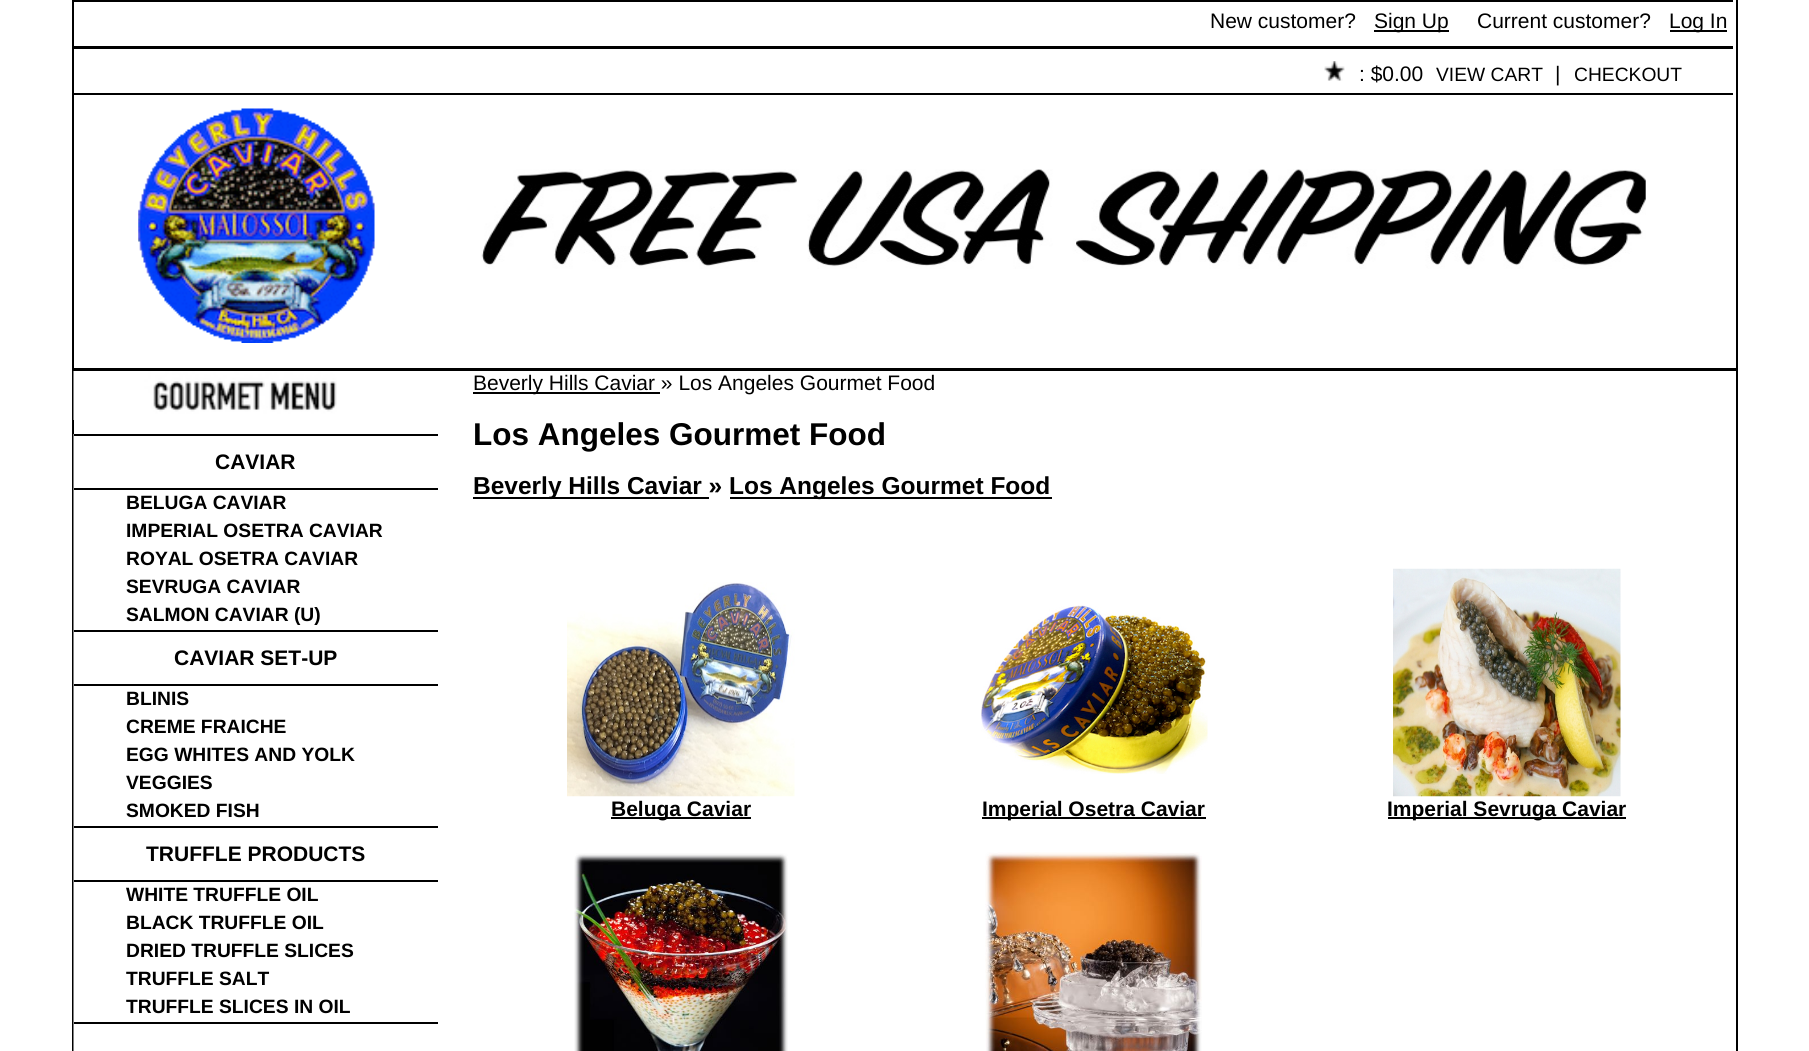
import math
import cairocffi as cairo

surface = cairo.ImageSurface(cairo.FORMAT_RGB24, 1809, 1051)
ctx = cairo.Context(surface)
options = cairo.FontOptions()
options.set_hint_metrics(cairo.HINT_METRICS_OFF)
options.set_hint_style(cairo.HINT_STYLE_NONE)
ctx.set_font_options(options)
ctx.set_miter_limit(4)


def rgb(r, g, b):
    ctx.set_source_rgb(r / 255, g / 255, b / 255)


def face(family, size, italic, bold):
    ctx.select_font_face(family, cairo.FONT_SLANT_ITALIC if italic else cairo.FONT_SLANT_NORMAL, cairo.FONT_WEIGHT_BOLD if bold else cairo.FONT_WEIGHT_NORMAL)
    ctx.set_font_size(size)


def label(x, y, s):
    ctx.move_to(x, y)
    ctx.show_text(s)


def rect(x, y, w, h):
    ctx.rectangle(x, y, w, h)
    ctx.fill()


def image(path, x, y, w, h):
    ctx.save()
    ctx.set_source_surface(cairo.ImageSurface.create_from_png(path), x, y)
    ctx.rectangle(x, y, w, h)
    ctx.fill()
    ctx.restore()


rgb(255, 255, 255)
ctx.paint()
rgb(0, 0, 0)
rect(1736, 0, 2, 1051)
rect(72, 0, 2, 1051)
rect(74, 368, 1662, 3)
rect(74, 0, 1659, 2)
rect(74, 46, 1659, 3)
face('Liberation Sans', 21, 0, 0)
label(1210, 28, 'New customer?')
rect(1374, 30, 75, 2)
label(1374, 28, 'Sign Up')
label(1477, 28, 'Current customer?')
rect(1670, 30, 57, 2)
label(1669, 28, 'Log In')
rect(74, 93, 1659, 2)
image('image0.png', 1324, 61, 21, 20)
label(1359, 81, ': $0.00')
face('Liberation Sans', 19.25, 0, 0)
label(1436, 81, 'VIEW CART')
face('Liberation Sans', 21, 0, 0)
label(1555, 81, '|')
face('Liberation Sans', 19.25, 0, 0)
label(1574, 81, 'CHECKOUT')
image('image1.png', 138, 108, 237, 235)
image('image2.png', 481, 169, 1165, 100)
image('image3.png', 73, 371, 264, 49)
rgb(128, 128, 128)
rect(73, 434, 1, 617)
rgb(0, 0, 0)
rect(74, 434, 364, 2)
rect(74, 488, 364, 2)
face('Liberation Sans', 21, 0, 1)
label(215, 469, 'CAVIAR')
face('Liberation Sans', 19.25, 0, 1)
label(126, 509, 'BELUGA CAVIAR')
label(126, 537, 'IMPERIAL OSETRA CAVIAR')
label(126, 565, 'ROYAL OSETRA CAVIAR')
label(126, 593, 'SEVRUGA CAVIAR')
label(126, 621, 'SALMON CAVIAR (U)')
rect(74, 630, 364, 2)
rect(74, 684, 364, 2)
face('Liberation Sans', 21, 0, 1)
label(174, 665, 'CAVIAR SET-UP')
face('Liberation Sans', 19.25, 0, 1)
label(126, 705, 'BLINIS')
label(126, 733, 'CREME FRAICHE')
label(126, 761, 'EGG WHITES AND YOLK')
label(126, 789, 'VEGGIES')
label(126, 817, 'SMOKED FISH')
rect(74, 826, 364, 2)
rect(74, 880, 364, 2)
face('Liberation Sans', 21, 0, 1)
label(146, 861, 'TRUFFLE PRODUCTS')
face('Liberation Sans', 19.25, 0, 1)
label(126, 901, 'WHITE TRUFFLE OIL')
label(126, 929, 'BLACK TRUFFLE OIL')
label(126, 957, 'DRIED TRUFFLE SLICES')
label(126, 985, 'TRUFFLE SALT')
label(126, 1013, 'TRUFFLE SLICES IN OIL')
rect(74, 1022, 364, 2)
rect(473, 392, 187, 2)
face('Liberation Sans', 21, 0, 0)
label(473, 390, 'Beverly Hills Caviar » Los Angeles Gourmet Food')
face('Liberation Sans', 31.5, 0, 1)
label(473, 445, 'Los Angeles Gourmet Food')
rect(473, 497, 236, 2)
face('Liberation Sans', 24.5, 0, 1)
label(473, 494, 'Beverly Hills Caviar »')
rect(730, 497, 322, 2)
label(729, 494, 'Los Angeles Gourmet Food')
image('image4.png', 567, 582, 228, 215)
rect(611, 817, 140, 2)
face('Liberation Sans', 21, 0, 1)
label(611, 816, 'Beluga Caviar')
image('image5.png', 981, 605, 227, 169)
rect(982, 817, 224, 2)
label(982, 816, 'Imperial Osetra Caviar')
image('image6.png', 1393, 568, 228, 229)
rect(1388, 817, 238, 2)
label(1387, 816, 'Imperial Sevruga Caviar')
image('image7.png', 574, 853, 214, 198)
image('image8.png', 985, 852, 217, 199)
surface.write_to_png('render.png')
